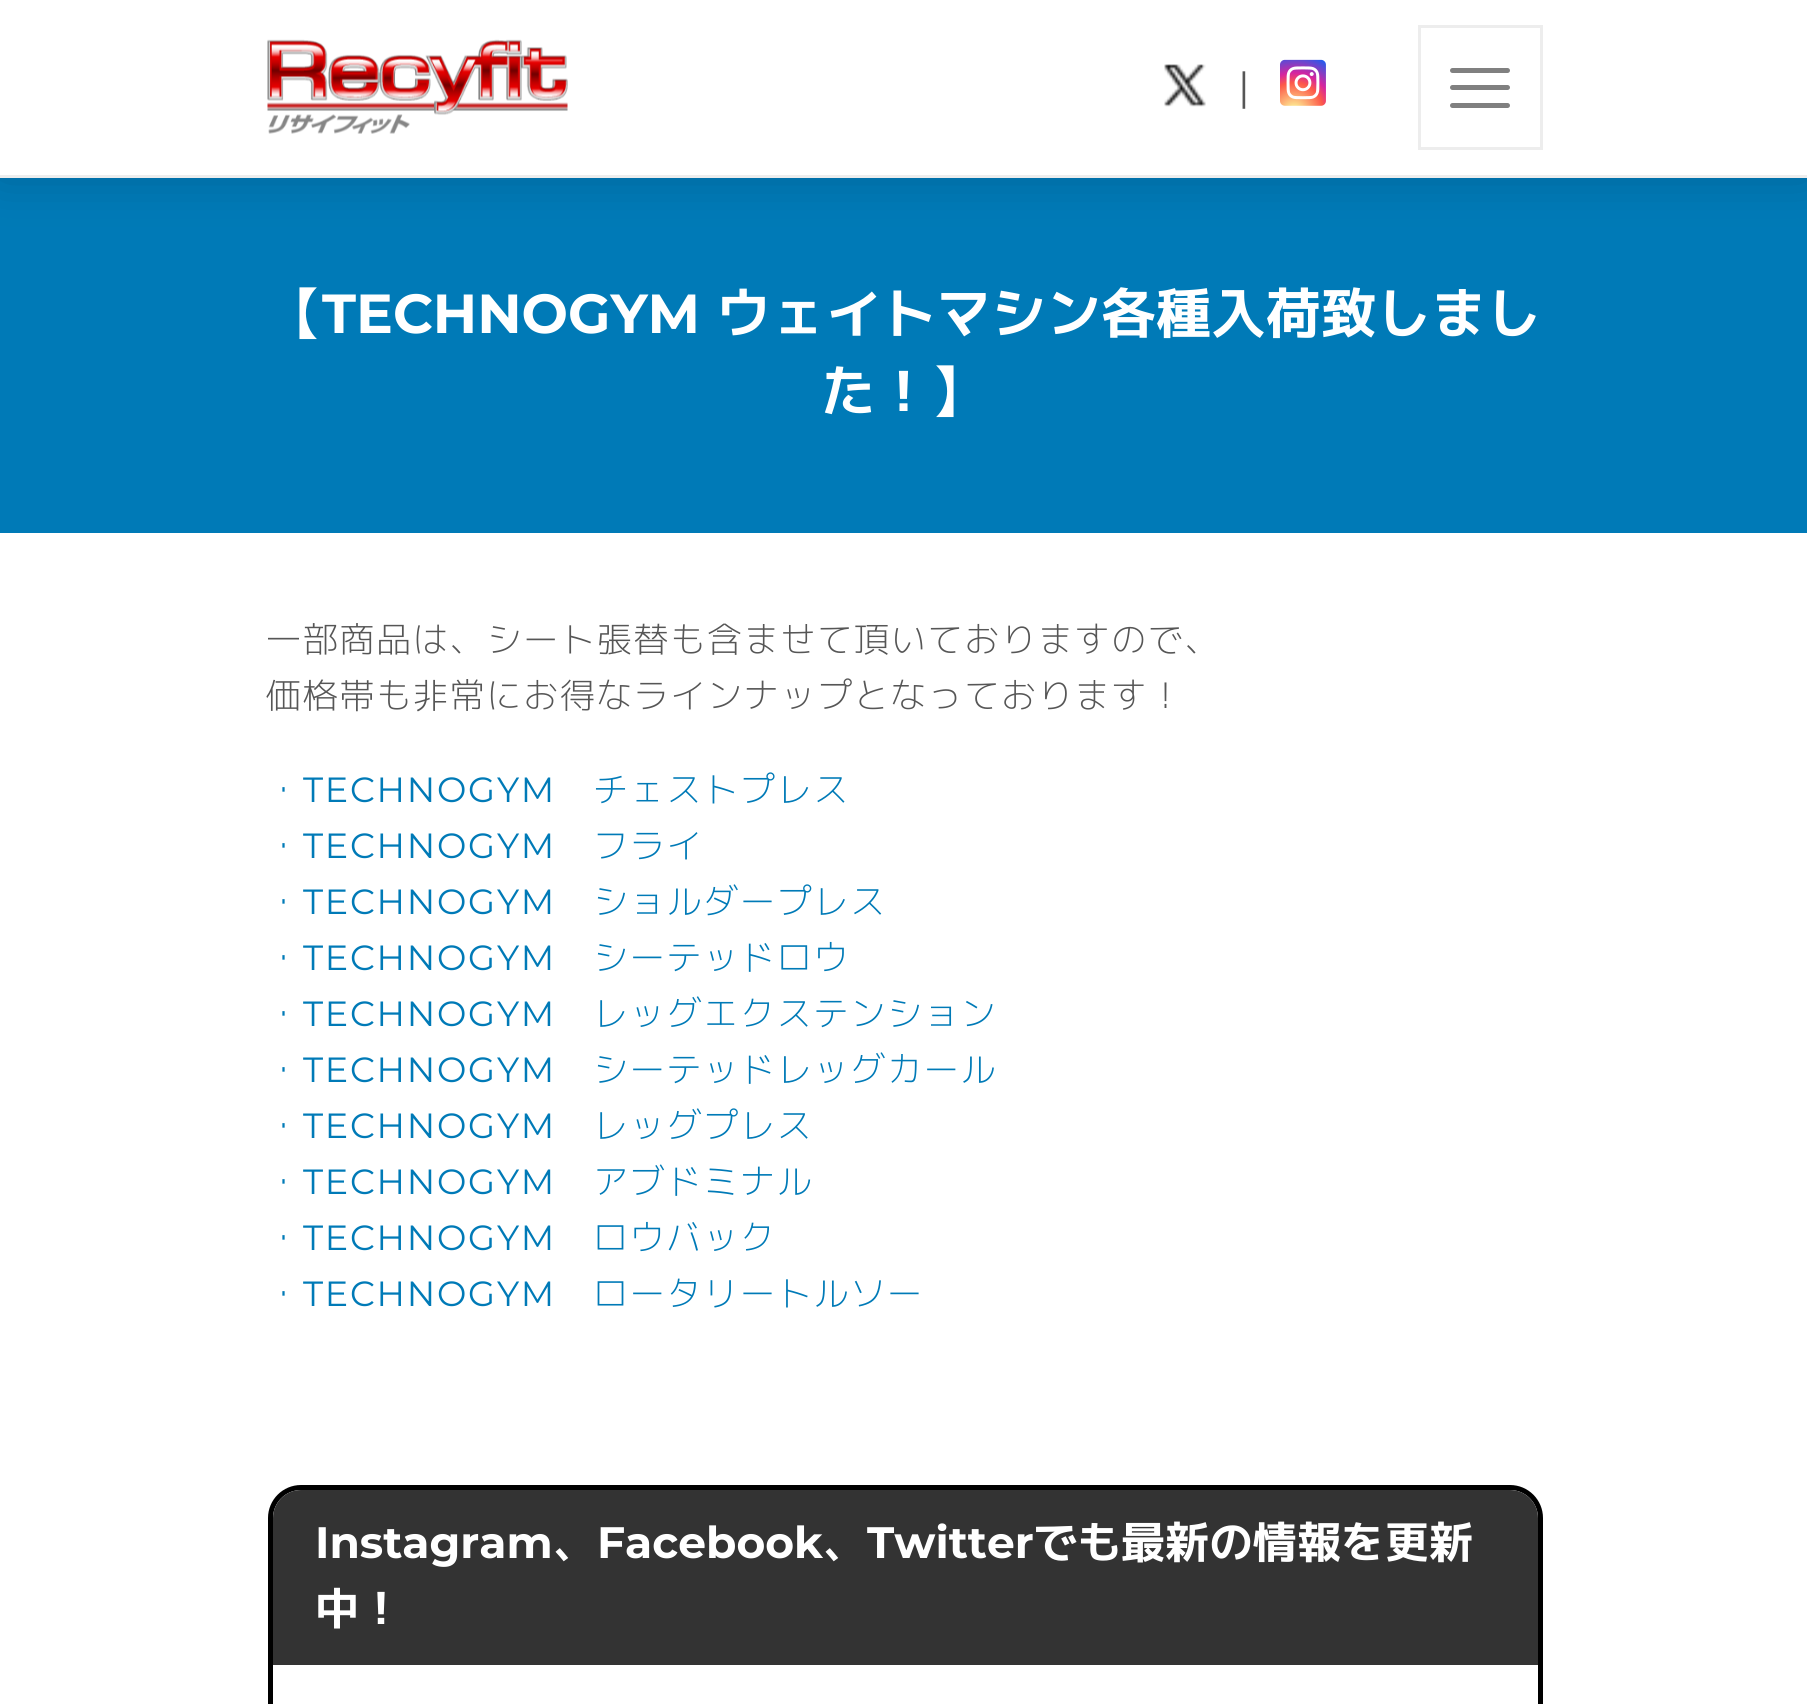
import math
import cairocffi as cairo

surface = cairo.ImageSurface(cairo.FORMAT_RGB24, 1807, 1704)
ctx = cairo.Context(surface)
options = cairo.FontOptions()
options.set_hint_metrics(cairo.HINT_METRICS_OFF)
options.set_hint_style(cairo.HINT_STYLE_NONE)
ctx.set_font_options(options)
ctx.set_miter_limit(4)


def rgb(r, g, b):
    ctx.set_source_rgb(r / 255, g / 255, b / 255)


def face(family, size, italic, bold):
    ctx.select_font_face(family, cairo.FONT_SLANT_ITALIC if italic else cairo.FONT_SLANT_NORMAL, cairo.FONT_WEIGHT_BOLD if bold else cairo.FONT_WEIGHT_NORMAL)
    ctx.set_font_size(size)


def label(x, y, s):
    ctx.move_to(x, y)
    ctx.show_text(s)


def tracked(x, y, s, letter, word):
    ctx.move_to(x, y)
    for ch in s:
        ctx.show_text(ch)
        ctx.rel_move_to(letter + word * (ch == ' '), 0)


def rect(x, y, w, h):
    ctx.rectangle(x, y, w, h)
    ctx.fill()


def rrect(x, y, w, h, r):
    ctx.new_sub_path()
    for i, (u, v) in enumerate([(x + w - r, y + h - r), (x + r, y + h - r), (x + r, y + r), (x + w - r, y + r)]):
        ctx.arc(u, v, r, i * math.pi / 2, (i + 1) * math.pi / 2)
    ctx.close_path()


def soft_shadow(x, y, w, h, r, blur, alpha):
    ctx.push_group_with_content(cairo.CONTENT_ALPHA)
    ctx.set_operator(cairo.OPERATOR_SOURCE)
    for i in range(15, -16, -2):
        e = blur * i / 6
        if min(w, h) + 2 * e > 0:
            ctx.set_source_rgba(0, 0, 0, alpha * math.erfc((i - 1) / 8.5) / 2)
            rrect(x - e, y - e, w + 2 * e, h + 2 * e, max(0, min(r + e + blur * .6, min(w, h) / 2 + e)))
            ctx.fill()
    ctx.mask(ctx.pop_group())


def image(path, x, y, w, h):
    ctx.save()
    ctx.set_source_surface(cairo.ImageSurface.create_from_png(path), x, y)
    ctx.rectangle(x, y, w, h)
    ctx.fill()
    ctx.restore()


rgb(255, 255, 255)
ctx.paint()
rgb(0, 122, 183)
rect(0, 178, 1807, 355)
rgb(0, 0, 0)
soft_shadow(0, -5, 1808, 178, 0, 25, 0.2)
rgb(255, 255, 255)
rect(0, 0, 1807, 175)
rgb(237, 237, 237)
rect(0, 175, 1807, 3)
image('image0.png', 267, 39, 301, 95)
image('image1.png', 1164, 64, 42, 43)
face('Montserrat', 40, 0, 0)
rgb(86, 86, 86)
label(1238, 101, '|')
image('image2.png', 1280, 59, 46, 47)
ctx.rectangle(1419.5, 26.5, 122, 122)
rgb(237, 237, 237)
ctx.set_line_width(3)
ctx.stroke()
rgb(128, 128, 128)
rrect(1450, 68, 60, 5, 2.5)
ctx.fill()
rrect(1450, 85, 60, 5, 2.5)
ctx.fill()
rrect(1450, 103, 60, 5, 2.5)
ctx.fill()
face('M PLUS 1p', 55, 0, 1)
rgb(255, 255, 255)
label(267, 333, '【')
face('Montserrat', 55, 0, 1)
label(322, 333, 'TECHNOGYM')
face('M PLUS 1p', 55, 0, 1)
label(716, 333, 'ウェイトマシン各種入荷致しまし')
label(821, 411, 'た！】')
face('M PLUS 1p Light', 35, 0, 0)
rgb(86, 86, 86)
tracked(266, 652, '一部商品は、シート張替も含ませて頂いておりますので、', 1.75, 0)
tracked(266, 708, '価格帯も非常にお得なラインナップとなっております！', 1.75, 0)
rgb(0, 122, 183)
tracked(266, 802, '・', 1.75, 0)
face('Montserrat', 35, 0, 0)
tracked(303, 802, 'TECHNOGYM', 1.75, 0)
face('M PLUS 1p Light', 35, 0, 0)
tracked(593, 802, 'チェストプレス', 1.75, 0)
tracked(266, 858, '・', 1.75, 0)
face('Montserrat', 35, 0, 0)
tracked(303, 858, 'TECHNOGYM', 1.75, 0)
face('M PLUS 1p Light', 35, 0, 0)
tracked(593, 858, 'フライ', 1.75, 0)
tracked(266, 914, '・', 1.75, 0)
face('Montserrat', 35, 0, 0)
tracked(303, 914, 'TECHNOGYM', 1.75, 0)
face('M PLUS 1p Light', 35, 0, 0)
tracked(593, 914, 'ショルダープレス', 1.75, 0)
tracked(266, 970, '・', 1.75, 0)
face('Montserrat', 35, 0, 0)
tracked(303, 970, 'TECHNOGYM', 1.75, 0)
face('M PLUS 1p Light', 35, 0, 0)
tracked(593, 970, 'シーテッドロウ', 1.75, 0)
tracked(266, 1026, '・', 1.75, 0)
face('Montserrat', 35, 0, 0)
tracked(303, 1026, 'TECHNOGYM', 1.75, 0)
face('M PLUS 1p Light', 35, 0, 0)
tracked(593, 1026, 'レッグエクステンション', 1.75, 0)
tracked(266, 1082, '・', 1.75, 0)
face('Montserrat', 35, 0, 0)
tracked(303, 1082, 'TECHNOGYM', 1.75, 0)
face('M PLUS 1p Light', 35, 0, 0)
tracked(593, 1082, 'シーテッドレッグカール', 1.75, 0)
tracked(266, 1138, '・', 1.75, 0)
face('Montserrat', 35, 0, 0)
tracked(303, 1138, 'TECHNOGYM', 1.75, 0)
face('M PLUS 1p Light', 35, 0, 0)
tracked(593, 1138, 'レッグプレス', 1.75, 0)
tracked(266, 1194, '・', 1.75, 0)
face('Montserrat', 35, 0, 0)
tracked(303, 1194, 'TECHNOGYM', 1.75, 0)
face('M PLUS 1p Light', 35, 0, 0)
tracked(593, 1194, 'アブドミナル', 1.75, 0)
tracked(266, 1250, '・', 1.75, 0)
face('Montserrat', 35, 0, 0)
tracked(303, 1250, 'TECHNOGYM', 1.75, 0)
face('M PLUS 1p Light', 35, 0, 0)
tracked(593, 1250, 'ロウバック', 1.75, 0)
tracked(266, 1306, '・', 1.75, 0)
face('Montserrat', 35, 0, 0)
tracked(303, 1306, 'TECHNOGYM', 1.75, 0)
face('M PLUS 1p Light', 35, 0, 0)
tracked(593, 1306, 'ロータリートルソー', 1.75, 0)
rrect(270.5, 1487.5, 1270, 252, 30.5)
rgb(0, 0, 0)
ctx.set_line_width(5)
ctx.stroke()
rgb(51, 51, 51)
ctx.new_path()
ctx.move_to(301, 1490)
ctx.line_to(1510, 1490)
ctx.curve_to(1525.5, 1490, 1538, 1502.5, 1538, 1518)
ctx.line_to(1538, 1665)
ctx.line_to(273, 1665)
ctx.line_to(273, 1518)
ctx.curve_to(273, 1502.5, 285.5, 1490, 301, 1490)
ctx.close_path()
ctx.fill()
face('Montserrat', 44, 0, 1)
rgb(255, 255, 255)
label(315, 1558, 'Instagram')
face('M PLUS 1p', 44, 0, 1)
label(553, 1558, '、')
face('Montserrat', 44, 0, 1)
label(597, 1558, 'Facebook')
face('M PLUS 1p', 44, 0, 1)
label(823, 1558, '、')
face('Montserrat', 44, 0, 1)
label(867, 1558, 'Twitter')
face('M PLUS 1p', 44, 0, 1)
label(1033, 1558, 'でも最新の情報を更新')
label(315, 1624, '中！')
surface.write_to_png('render.png')
